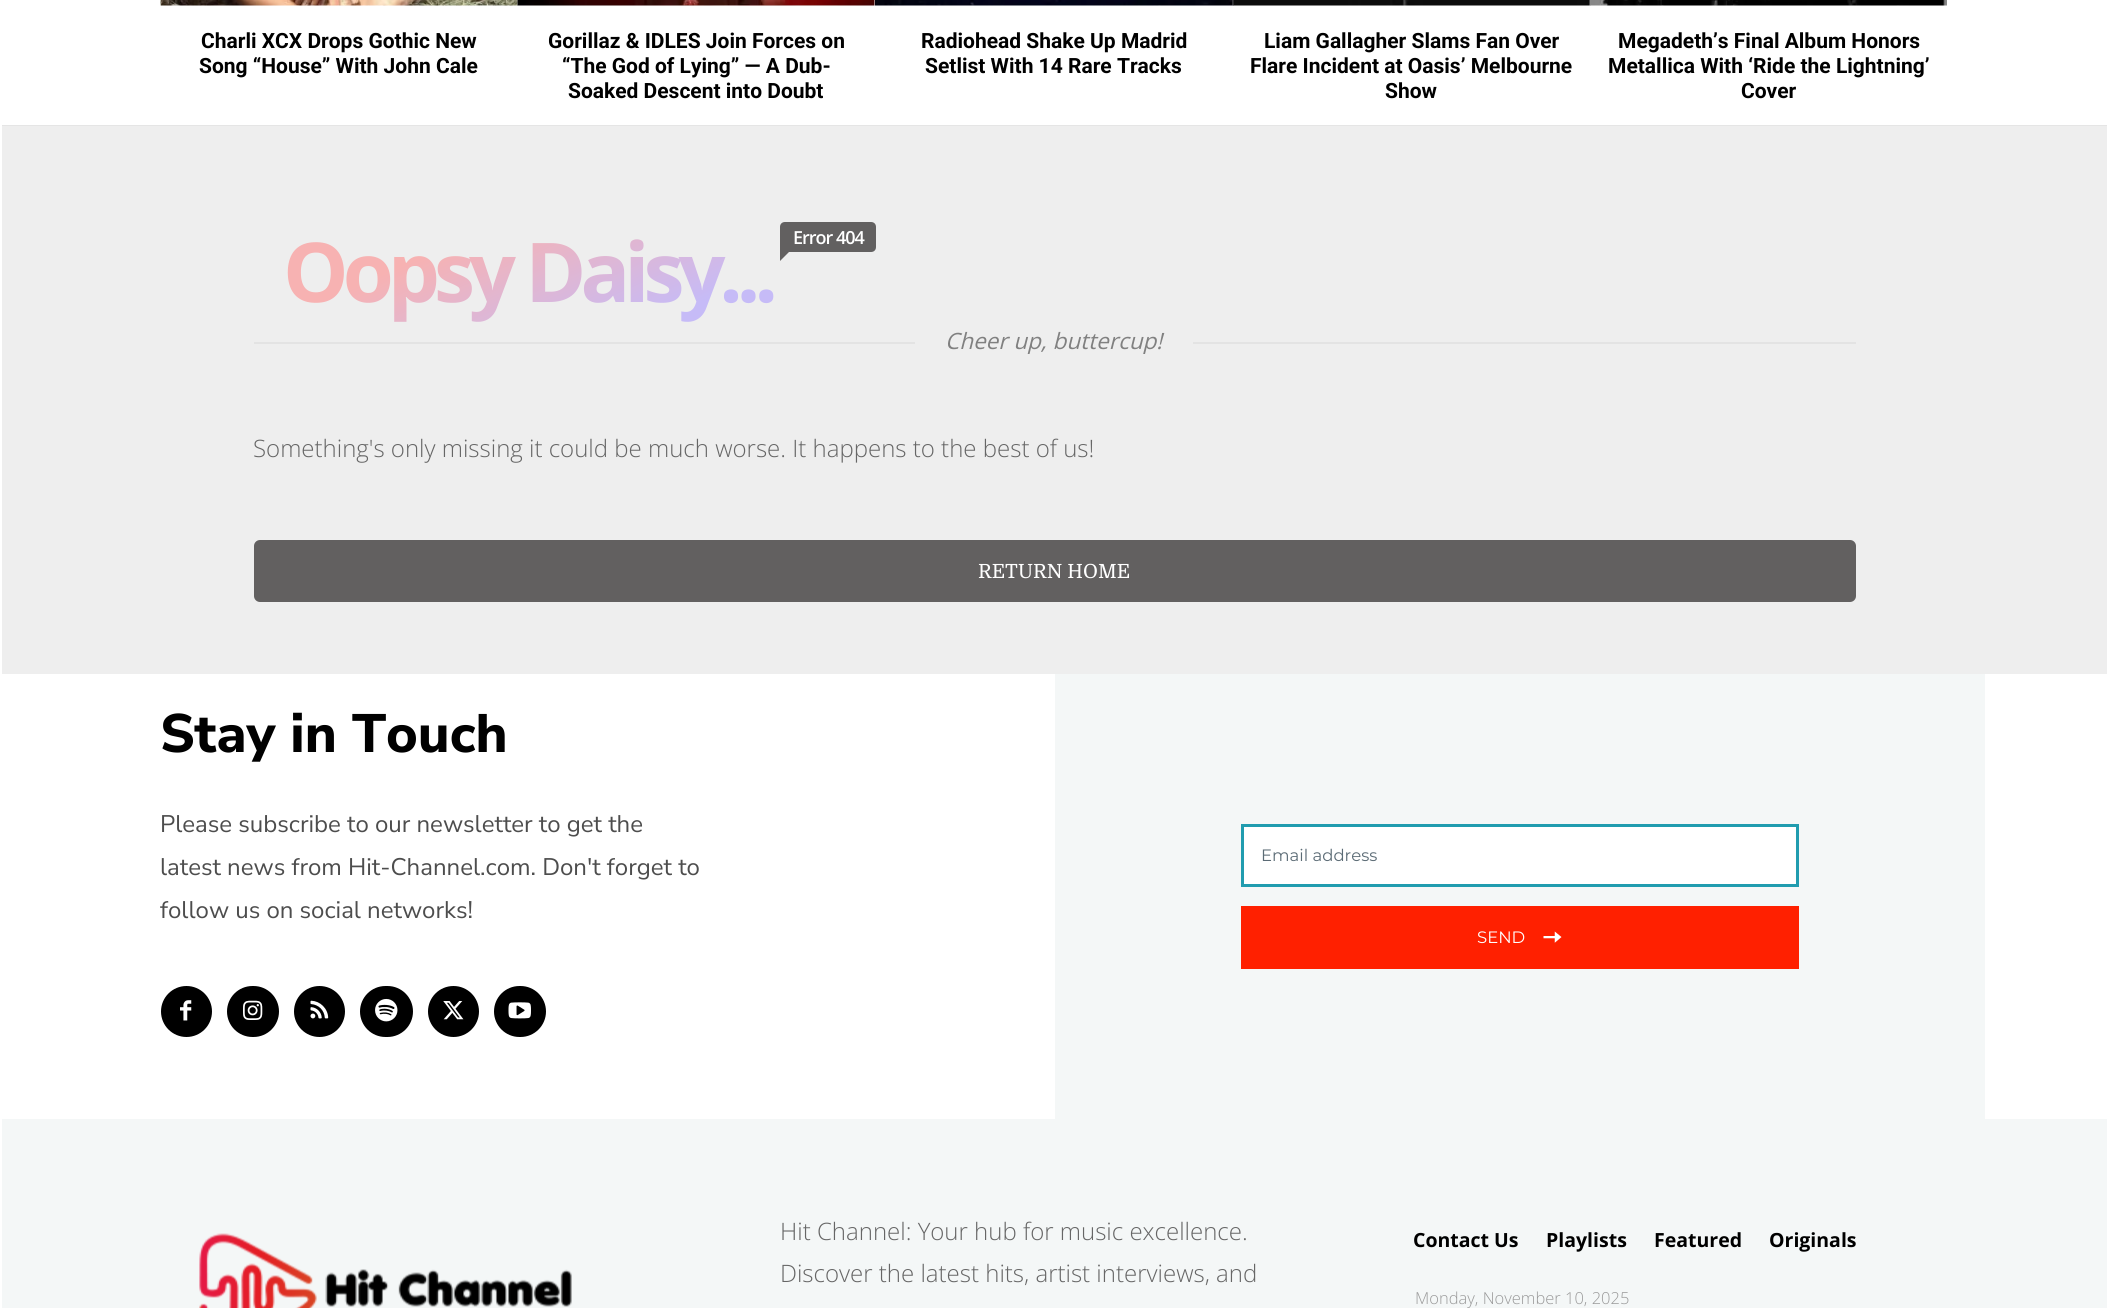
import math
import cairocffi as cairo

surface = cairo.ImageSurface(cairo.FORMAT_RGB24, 2107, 1308)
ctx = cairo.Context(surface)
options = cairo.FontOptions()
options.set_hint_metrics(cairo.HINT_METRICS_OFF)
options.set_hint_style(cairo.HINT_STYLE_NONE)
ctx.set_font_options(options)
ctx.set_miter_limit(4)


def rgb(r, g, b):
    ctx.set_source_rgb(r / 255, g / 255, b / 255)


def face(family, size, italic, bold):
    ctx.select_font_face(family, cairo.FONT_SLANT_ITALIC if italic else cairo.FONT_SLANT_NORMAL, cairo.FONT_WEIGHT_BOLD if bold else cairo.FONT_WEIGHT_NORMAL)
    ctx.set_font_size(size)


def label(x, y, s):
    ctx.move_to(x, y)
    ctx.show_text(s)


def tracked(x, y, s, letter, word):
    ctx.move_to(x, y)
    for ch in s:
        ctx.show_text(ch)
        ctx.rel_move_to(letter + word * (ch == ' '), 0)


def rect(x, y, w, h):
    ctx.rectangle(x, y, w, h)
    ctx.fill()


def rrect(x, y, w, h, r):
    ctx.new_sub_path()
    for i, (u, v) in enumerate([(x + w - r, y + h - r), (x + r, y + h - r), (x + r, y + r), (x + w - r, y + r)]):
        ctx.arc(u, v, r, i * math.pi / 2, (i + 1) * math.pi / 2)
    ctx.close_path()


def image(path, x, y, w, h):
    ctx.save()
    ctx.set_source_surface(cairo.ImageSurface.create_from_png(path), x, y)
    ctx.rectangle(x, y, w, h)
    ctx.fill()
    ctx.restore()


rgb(255, 255, 255)
ctx.paint()
image('image0.png', 160, 0, 358, 6)
face('Roboto', 21, 0, 1)
rgb(0, 0, 0)
label(201, 48, 'Charli XCX Drops Gothic New')
label(199, 73, 'Song “House” With John Cale')
image('image1.png', 517, 0, 358, 6)
label(548, 48, 'Gorillaz & IDLES Join Forces on')
label(562, 73, '“The God of Lying” — A Dub-')
label(568, 98, 'Soaked Descent into Doubt')
image('image2.png', 875, 0, 359, 6)
label(921, 48, 'Radiohead Shake Up Madrid')
label(925, 73, 'Setlist With 14 Rare Tracks')
image('image3.png', 1232, 0, 359, 6)
label(1264, 48, 'Liam Gallagher Slams Fan Over')
label(1250, 73, 'Flare Incident at Oasis’ Melbourne')
label(1385, 98, 'Show')
image('image4.png', 1590, 0, 357, 6)
label(1618, 48, 'Megadeth’s Final Album Honors')
label(1608, 73, 'Metallica With ‘Ride the Lightning’')
label(1741, 98, 'Cover')
rgb(229, 229, 229)
rect(2, 125, 2105, 1)
rgb(238, 238, 238)
rect(2, 126, 2105, 548)
rgb(98, 96, 96)
ctx.new_path()
ctx.move_to(785, 222)
ctx.line_to(871, 222)
ctx.curve_to(874, 222, 876, 224, 876, 227)
ctx.line_to(876, 247)
ctx.curve_to(876, 250, 874, 252, 871, 252)
ctx.line_to(780, 252)
ctx.line_to(780, 227)
ctx.curve_to(780, 224, 782, 222, 785, 222)
ctx.close_path()
ctx.fill()
face('Open Sans SemiBold', 18, 0, 0)
rgb(255, 255, 255)
tracked(793, 244, 'Error 404', -1, 0)
rgb(98, 96, 96)
ctx.new_path()
ctx.move_to(780, 252)
ctx.line_to(789, 252)
ctx.line_to(780, 261)
ctx.close_path()
ctx.fill()
face('Open Sans', 82.5, 0, 1)
gradient = cairo.LinearGradient(464, 135, 591, 420)
gradient.add_color_stop_rgba(0.3, 0.969, 0.698, 0.698, 1)
gradient.add_color_stop_rgba(0.8, 0.776, 0.733, 0.969, 1)
ctx.set_source(gradient)
tracked(283, 302, 'Oopsy Daisy...', -6, 0)
rgb(227, 227, 227)
rect(254, 342, 661, 2)
ctx.save()
ctx.rectangle(254, 228, 1602, 126)
ctx.clip()
face('Open Sans', 22.5, 1, 0)
rgb(128, 128, 128)
label(945, 349, 'Cheer up, buttercup!')
ctx.restore()
rect(1193, 342, 663, 2)
face('Open Sans Light', 24, 0, 0)
rgb(102, 102, 102)
label(253, 457, 'Something\'s only missing it could be much worse. It happens to the best of us!')
rgb(98, 96, 96)
rrect(254, 540, 1602, 62, 6)
ctx.fill()
face('Domine', 19.5, 0, 0)
rgb(255, 255, 255)
label(978, 578, 'RETURN HOME')
face('Nunito Sans ExtraBold', 54, 0, 0)
rgb(0, 0, 0)
label(160, 752, 'Stay in Touch')
face('Nunito Sans', 24, 0, 0)
rgb(77, 77, 77)
label(160, 832, 'Please subscribe to our newsletter to get the')
label(160, 875, 'latest news from Hit-Channel.com. Don\'t forget to')
label(160, 918, 'follow us on social networks!')
rgb(0, 0, 0)
ctx.new_path()
ctx.arc(186.5, 1011.5, 25.5, 0, 2 * math.pi)
ctx.fill()
image('image5.png', 180, 1000, 12, 21)
rrect(227, 986, 52, 51, 25.5)
ctx.fill()
image('image6.png', 243, 1000, 20, 20)
ctx.arc(319.5, 1011.5, 25.5, 0, 2 * math.pi)
ctx.fill()
image('image7.png', 310, 1000, 19, 19)
rrect(360, 986, 53, 51, 25.5)
ctx.fill()
image('image8.png', 375, 998, 23, 24)
ctx.arc(453.5, 1011.5, 25.5, 0, 2 * math.pi)
ctx.fill()
image('image9.png', 443, 1001, 21, 19)
rrect(494, 986, 52, 51, 25.5)
ctx.fill()
image('image10.png', 508, 1002, 23, 17)
rgb(244, 247, 247)
rect(1055, 674, 930, 445)
rgb(255, 255, 255)
ctx.rectangle(1242.5, 825.5, 555, 60)
ctx.fill_preserve()
rgb(33, 156, 175)
ctx.set_line_width(3)
ctx.stroke()
face('Montserrat Thin', 16.5, 0, 0)
rgb(91, 107, 117)
label(1261, 861, 'Email address')
rgb(255, 32, 0)
rect(1241, 906, 558, 63)
rgb(255, 255, 255)
label(1477, 943, 'SEND')
image('image11.png', 1543, 931, 19, 12)
rgb(244, 247, 247)
rect(2, 1119, 2105, 189)
image('image12.png', 199, 1233, 373, 75)
face('Open Sans Light', 24, 0, 0)
rgb(102, 102, 102)
label(780, 1240, 'Hit Channel: Your hub for music excellence.')
label(780, 1282, 'Discover the latest hits, artist interviews, and')
face('Open Sans', 19.5, 0, 1)
rgb(0, 0, 0)
label(1413, 1247, 'Contact Us')
label(1546, 1247, 'Playlists')
label(1654, 1247, 'Featured')
label(1769, 1247, 'Originals')
face('Open Sans Light', 16.5, 0, 0)
rgb(153, 153, 153)
label(1415, 1304, 'Monday, November 10, 2025')
surface.write_to_png('render.png')
